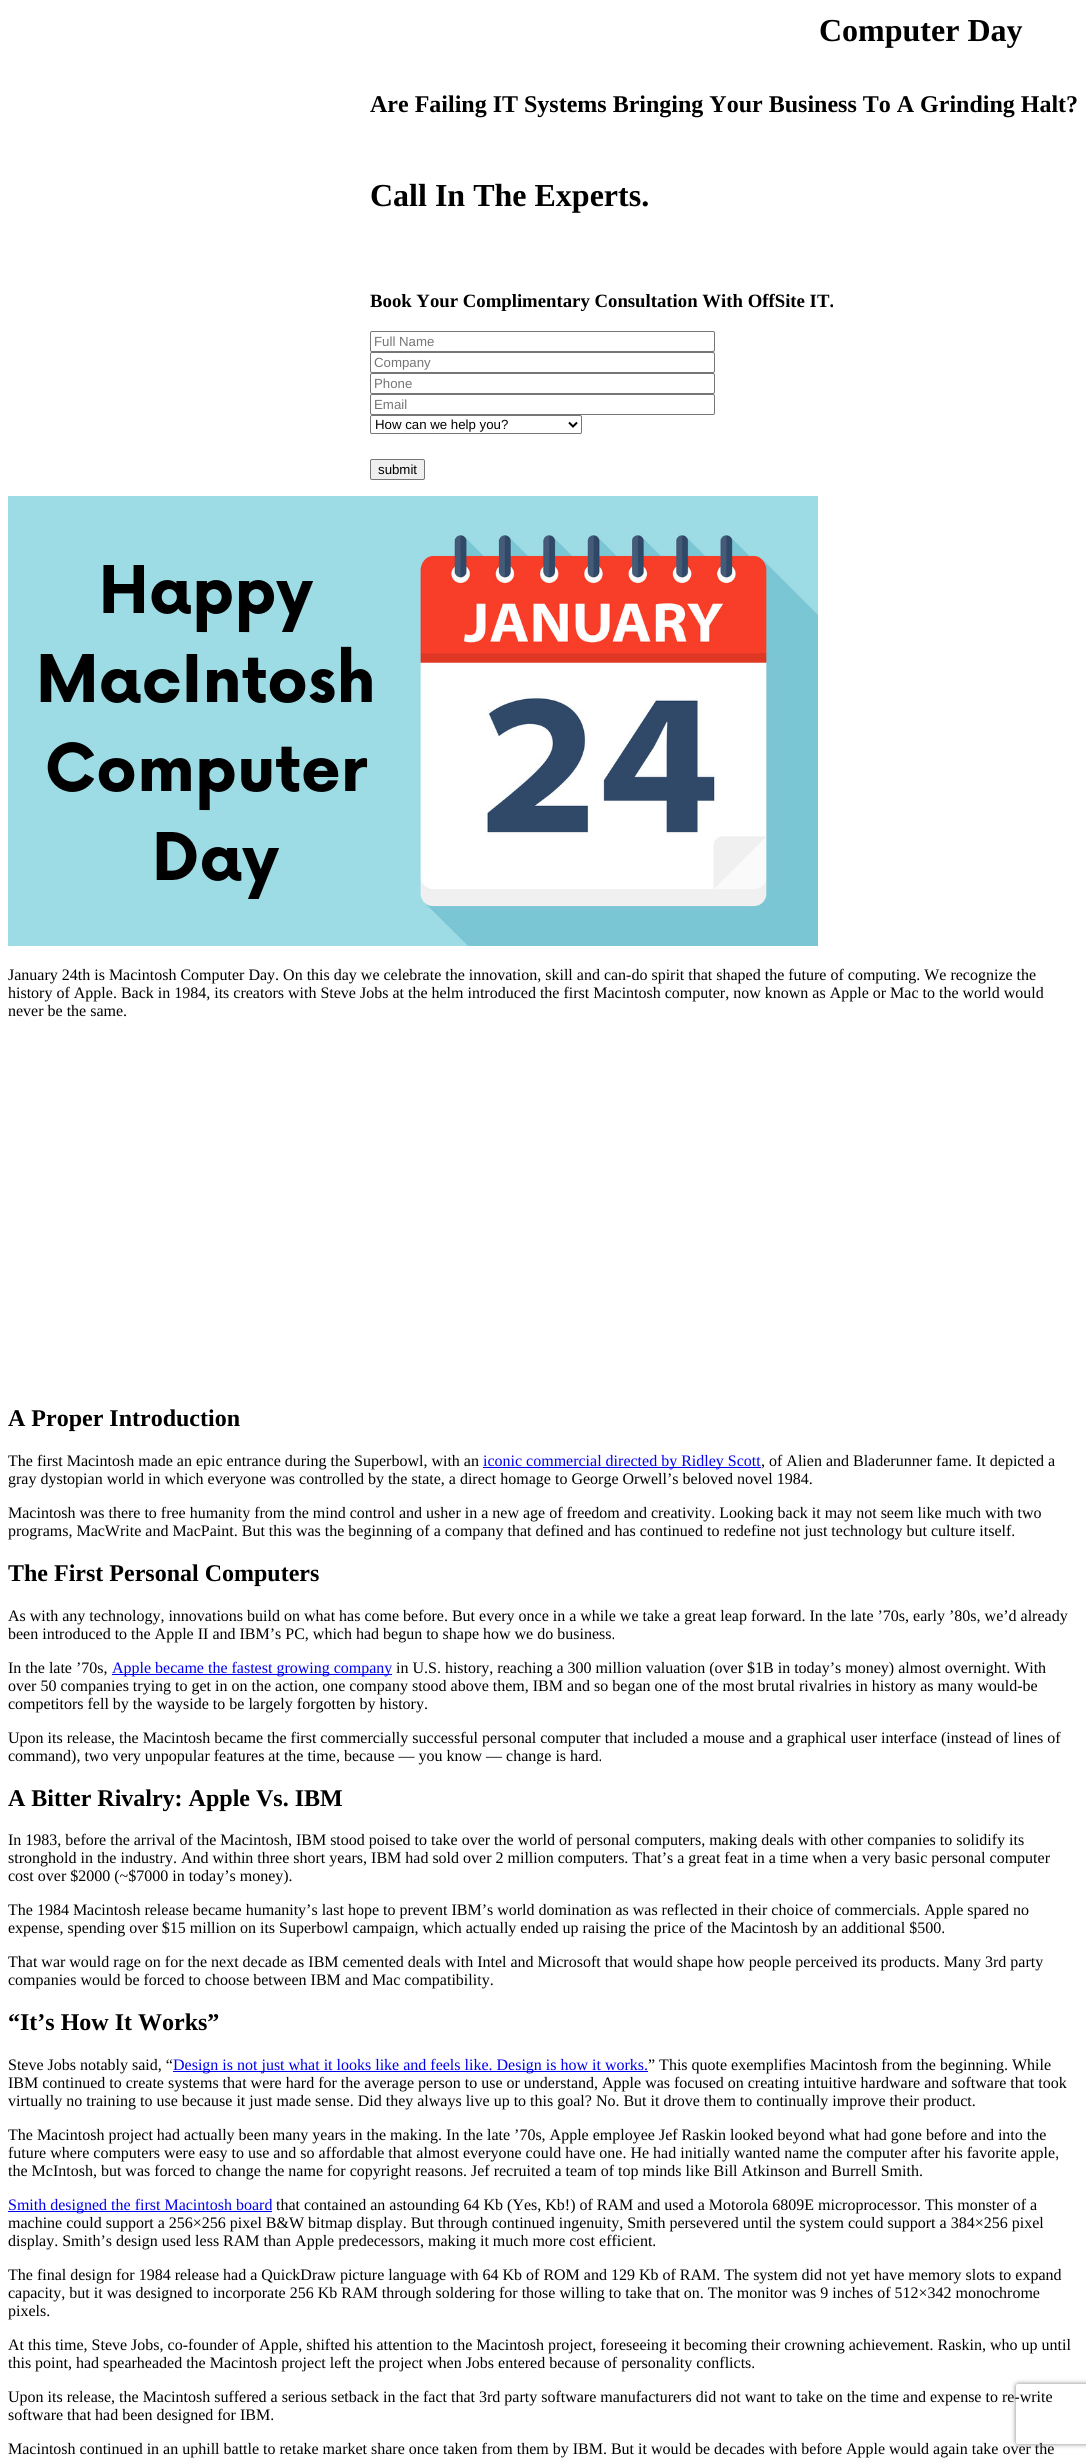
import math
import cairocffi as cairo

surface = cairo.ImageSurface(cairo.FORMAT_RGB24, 1086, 2458)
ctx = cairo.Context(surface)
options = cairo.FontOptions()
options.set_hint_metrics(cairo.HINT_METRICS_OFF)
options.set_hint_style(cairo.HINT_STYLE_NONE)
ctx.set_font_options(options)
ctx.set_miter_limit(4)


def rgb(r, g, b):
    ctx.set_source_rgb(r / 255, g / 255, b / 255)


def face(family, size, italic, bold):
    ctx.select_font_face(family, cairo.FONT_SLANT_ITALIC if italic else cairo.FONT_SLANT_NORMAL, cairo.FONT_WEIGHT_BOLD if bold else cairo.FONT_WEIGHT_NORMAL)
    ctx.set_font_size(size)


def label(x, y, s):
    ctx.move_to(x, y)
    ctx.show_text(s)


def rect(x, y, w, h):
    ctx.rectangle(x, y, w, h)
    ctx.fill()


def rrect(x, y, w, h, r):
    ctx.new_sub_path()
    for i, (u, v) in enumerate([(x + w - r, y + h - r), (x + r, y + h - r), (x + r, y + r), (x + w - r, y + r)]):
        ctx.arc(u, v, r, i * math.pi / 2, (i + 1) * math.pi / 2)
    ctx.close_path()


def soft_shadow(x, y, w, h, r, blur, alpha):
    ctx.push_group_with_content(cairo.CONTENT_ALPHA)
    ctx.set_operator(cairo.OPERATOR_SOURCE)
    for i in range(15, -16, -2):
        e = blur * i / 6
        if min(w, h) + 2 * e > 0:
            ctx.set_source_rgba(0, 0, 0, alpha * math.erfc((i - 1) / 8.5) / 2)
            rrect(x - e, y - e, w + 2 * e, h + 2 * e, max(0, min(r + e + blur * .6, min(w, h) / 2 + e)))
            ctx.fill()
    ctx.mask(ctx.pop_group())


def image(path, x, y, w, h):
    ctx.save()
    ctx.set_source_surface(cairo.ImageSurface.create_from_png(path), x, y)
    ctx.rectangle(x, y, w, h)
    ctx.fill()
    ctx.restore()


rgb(255, 255, 255)
ctx.paint()
face('Liberation Serif', 32, 0, 1)
rgb(0, 0, 0)
label(819, 41, 'Computer Day')
face('Liberation Serif', 24, 0, 1)
label(370, 112, 'Are Failing IT Systems Bringing Your Business To A Grinding Halt?')
face('Liberation Serif', 32, 0, 1)
label(370, 206, 'Call In The Experts.')
face('Liberation Serif', 18.75, 0, 1)
label(370, 307, 'Book Your Complimentary Consultation With OffSite IT.')
rrect(370.5, 331.5, 344, 20, 1.5)
rgb(118, 118, 118)
ctx.set_line_width(1)
ctx.stroke()
face('Liberation Sans', 13.25, 0, 0)
rgb(117, 117, 117)
label(374, 346, 'Full Name')
rrect(370.5, 352.5, 344, 20, 1.5)
rgb(118, 118, 118)
ctx.stroke()
rgb(117, 117, 117)
label(374, 367, 'Company')
rrect(370.5, 373.5, 344, 20, 1.5)
rgb(118, 118, 118)
ctx.stroke()
rgb(117, 117, 117)
label(374, 388, 'Phone')
rrect(370.5, 394.5, 344, 20, 1.5)
rgb(118, 118, 118)
ctx.stroke()
rgb(117, 117, 117)
label(374, 409, 'Email')
rrect(370.5, 415.5, 211, 18, 1.5)
rgb(118, 118, 118)
ctx.stroke()
ctx.new_path()
ctx.move_to(569, 422.5)
ctx.line_to(573, 426.5)
ctx.line_to(577, 422.5)
rgb(0, 0, 0)
ctx.set_line_width(2)
ctx.stroke()
label(375, 429, 'How can we help you?')
rgb(239, 239, 239)
rrect(370.5, 459.5, 54, 20, 1.5)
ctx.fill_preserve()
rgb(118, 118, 118)
ctx.set_line_width(1)
ctx.stroke()
rgb(0, 0, 0)
label(378, 474, 'submit')
image('image0.png', 8, 496, 810, 450)
face('Liberation Serif', 16, 0, 0)
label(8, 980, 'January 24th is Macintosh Computer Day. On this day we celebrate the innovation, skill and can-do spirit that shaped the future of computing. We recognize the')
label(8, 998, 'history of Apple. Back in 1984, its creators with Steve Jobs at the helm introduced the first Macintosh computer, now known as Apple or Mac to the world would')
label(8, 1016, 'never be the same.')
face('Liberation Serif', 24, 0, 1)
label(8, 1426, 'A Proper Introduction')
face('Liberation Serif', 16, 0, 0)
label(8, 1466, 'The first Macintosh made an epic entrance during the Superbowl, with an')
rgb(0, 0, 238)
rect(483, 1467, 278, 1)
label(483, 1466, 'iconic commercial directed by Ridley Scott')
rgb(0, 0, 0)
label(761, 1466, ', of Alien and Bladerunner fame. It depicted a')
label(8, 1484, 'gray dystopian world in which everyone was controlled by the state, a direct homage to George Orwell’s beloved novel 1984.')
label(8, 1518, 'Macintosh was there to free humanity from the mind control and usher in a new age of freedom and creativity. Looking back it may not seem like much with two')
label(8, 1536, 'programs, MacWrite and MacPaint. But this was the beginning of a company that defined and has continued to redefine not just technology but culture itself.')
face('Liberation Serif', 24, 0, 1)
label(8, 1581, 'The First Personal Computers')
face('Liberation Serif', 16, 0, 0)
label(8, 1621, 'As with any technology, innovations build on what has come before. But every once in a while we take a great leap forward. In the late ’70s, early ’80s, we’d already')
label(8, 1639, 'been introduced to the Apple II and IBM’s PC, which had begun to shape how we do business.')
label(8, 1673, 'In the late ’70s,')
rgb(0, 0, 238)
rect(112, 1674, 280, 1)
label(112, 1673, 'Apple became the fastest growing company')
rgb(0, 0, 0)
label(396, 1673, 'in U.S. history, reaching a 300 million valuation (over $1B in today’s money) almost overnight. With')
label(8, 1691, 'over 50 companies trying to get in on the action, one company stood above them, IBM and so began one of the most brutal rivalries in history as many would-be')
label(8, 1709, 'competitors fell by the wayside to be largely forgotten by history.')
label(8, 1743, 'Upon its release, the Macintosh became the first commercially successful personal computer that included a mouse and a graphical user interface (instead of lines of')
label(8, 1761, 'command), two very unpopular features at the time, because — you know — change is hard.')
face('Liberation Serif', 24, 0, 1)
label(8, 1806, 'A Bitter Rivalry: Apple Vs. IBM')
face('Liberation Serif', 16, 0, 0)
label(8, 1845, 'In 1983, before the arrival of the Macintosh, IBM stood poised to take over the world of personal computers, making deals with other companies to solidify its')
label(8, 1863, 'stronghold in the industry. And within three short years, IBM had sold over 2 million computers. That’s a great feat in a time when a very basic personal computer')
label(8, 1881, 'cost over $2000 (~$7000 in today’s money).')
label(8, 1915, 'The 1984 Macintosh release became humanity’s last hope to prevent IBM’s world domination as was reflected in their choice of commercials. Apple spared no')
label(8, 1933, 'expense, spending over $15 million on its Superbowl campaign, which actually ended up raising the price of the Macintosh by an additional $500.')
label(8, 1967, 'That war would rage on for the next decade as IBM cemented deals with Intel and Microsoft that would shape how people perceived its products. Many 3rd party')
label(8, 1985, 'companies would be forced to choose between IBM and Mac compatibility.')
face('Liberation Serif', 24, 0, 1)
label(8, 2030, '“It’s How It Works”')
face('Liberation Serif', 16, 0, 0)
label(8, 2070, 'Steve Jobs notably said, “')
rgb(0, 0, 238)
rect(173, 2071, 475, 1)
label(173, 2070, 'Design is not just what it looks like and feels like. Design is how it works.')
rgb(0, 0, 0)
label(648, 2070, '” This quote exemplifies Macintosh from the beginning. While')
label(8, 2088, 'IBM continued to create systems that were hard for the average person to use or understand, Apple was focused on creating intuitive hardware and software that took')
label(8, 2106, 'virtually no training to use because it just made sense. Did they always live up to this goal? No. But it drove them to continually improve their product.')
label(8, 2140, 'The Macintosh project had actually been many years in the making. In the late ’70s, Apple employee Jef Raskin looked beyond what had gone before and into the')
label(8, 2158, 'future where computers were easy to use and so affordable that almost everyone could have one. He had initially wanted name the computer after his favorite apple,')
label(8, 2176, 'the McIntosh, but was forced to change the name for copyright reasons. Jef recruited a team of top minds like Bill Atkinson and Burrell Smith.')
rgb(0, 0, 238)
rect(8, 2211, 264, 1)
label(8, 2210, 'Smith designed the first Macintosh board')
rgb(0, 0, 0)
label(276, 2210, 'that contained an astounding 64 Kb (Yes, Kb!) of RAM and used a Motorola 6809E microprocessor. This monster of a')
label(8, 2228, 'machine could support a 256×256 pixel B&W bitmap display. But through continued ingenuity, Smith persevered until the system could support a 384×256 pixel')
label(8, 2246, 'display. Smith’s design used less RAM than Apple predecessors, making it much more cost efficient.')
label(8, 2280, 'The final design for 1984 release had a QuickDraw picture language with 64 Kb of ROM and 129 Kb of RAM. The system did not yet have memory slots to expand')
label(8, 2298, 'capacity, but it was designed to incorporate 256 Kb RAM through soldering for those willing to take that on. The monitor was 9 inches of 512×342 monochrome')
label(8, 2316, 'pixels.')
label(8, 2350, 'At this time, Steve Jobs, co-founder of Apple, shifted his attention to the Macintosh project, foreseeing it becoming their crowning achievement. Raskin, who up until')
label(8, 2368, 'this point, had spearheaded the Macintosh project left the project when Jobs entered because of personality conflicts.')
label(8, 2402, 'Upon its release, the Macintosh suffered a serious setback in the fact that 3rd party software manufacturers did not want to take on the time and expense to re-write')
label(8, 2420, 'software that had been designed for IBM.')
label(8, 2454, 'Macintosh continued in an uphill battle to retake market share once taken from them by IBM. But it would be decades with before Apple would again take over the')
ctx.save()
ctx.set_fill_rule(cairo.FILL_RULE_EVEN_ODD)
ctx.new_path()
ctx.move_to(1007, 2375)
ctx.line_to(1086, 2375)
ctx.line_to(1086, 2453)
ctx.line_to(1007, 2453)
ctx.close_path()
ctx.move_to(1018, 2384)
ctx.line_to(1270, 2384)
ctx.curve_to(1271, 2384, 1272, 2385, 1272, 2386)
ctx.line_to(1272, 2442)
ctx.curve_to(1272, 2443, 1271, 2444, 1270, 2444)
ctx.line_to(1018, 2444)
ctx.curve_to(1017, 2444, 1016, 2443, 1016, 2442)
ctx.line_to(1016, 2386)
ctx.curve_to(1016, 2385, 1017, 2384, 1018, 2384)
ctx.close_path()
ctx.clip()
rgb(128, 128, 128)
soft_shadow(1016, 2384, 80, 60, 2, 2.5, 1)
ctx.restore()
surface.write_to_png('render.png')
